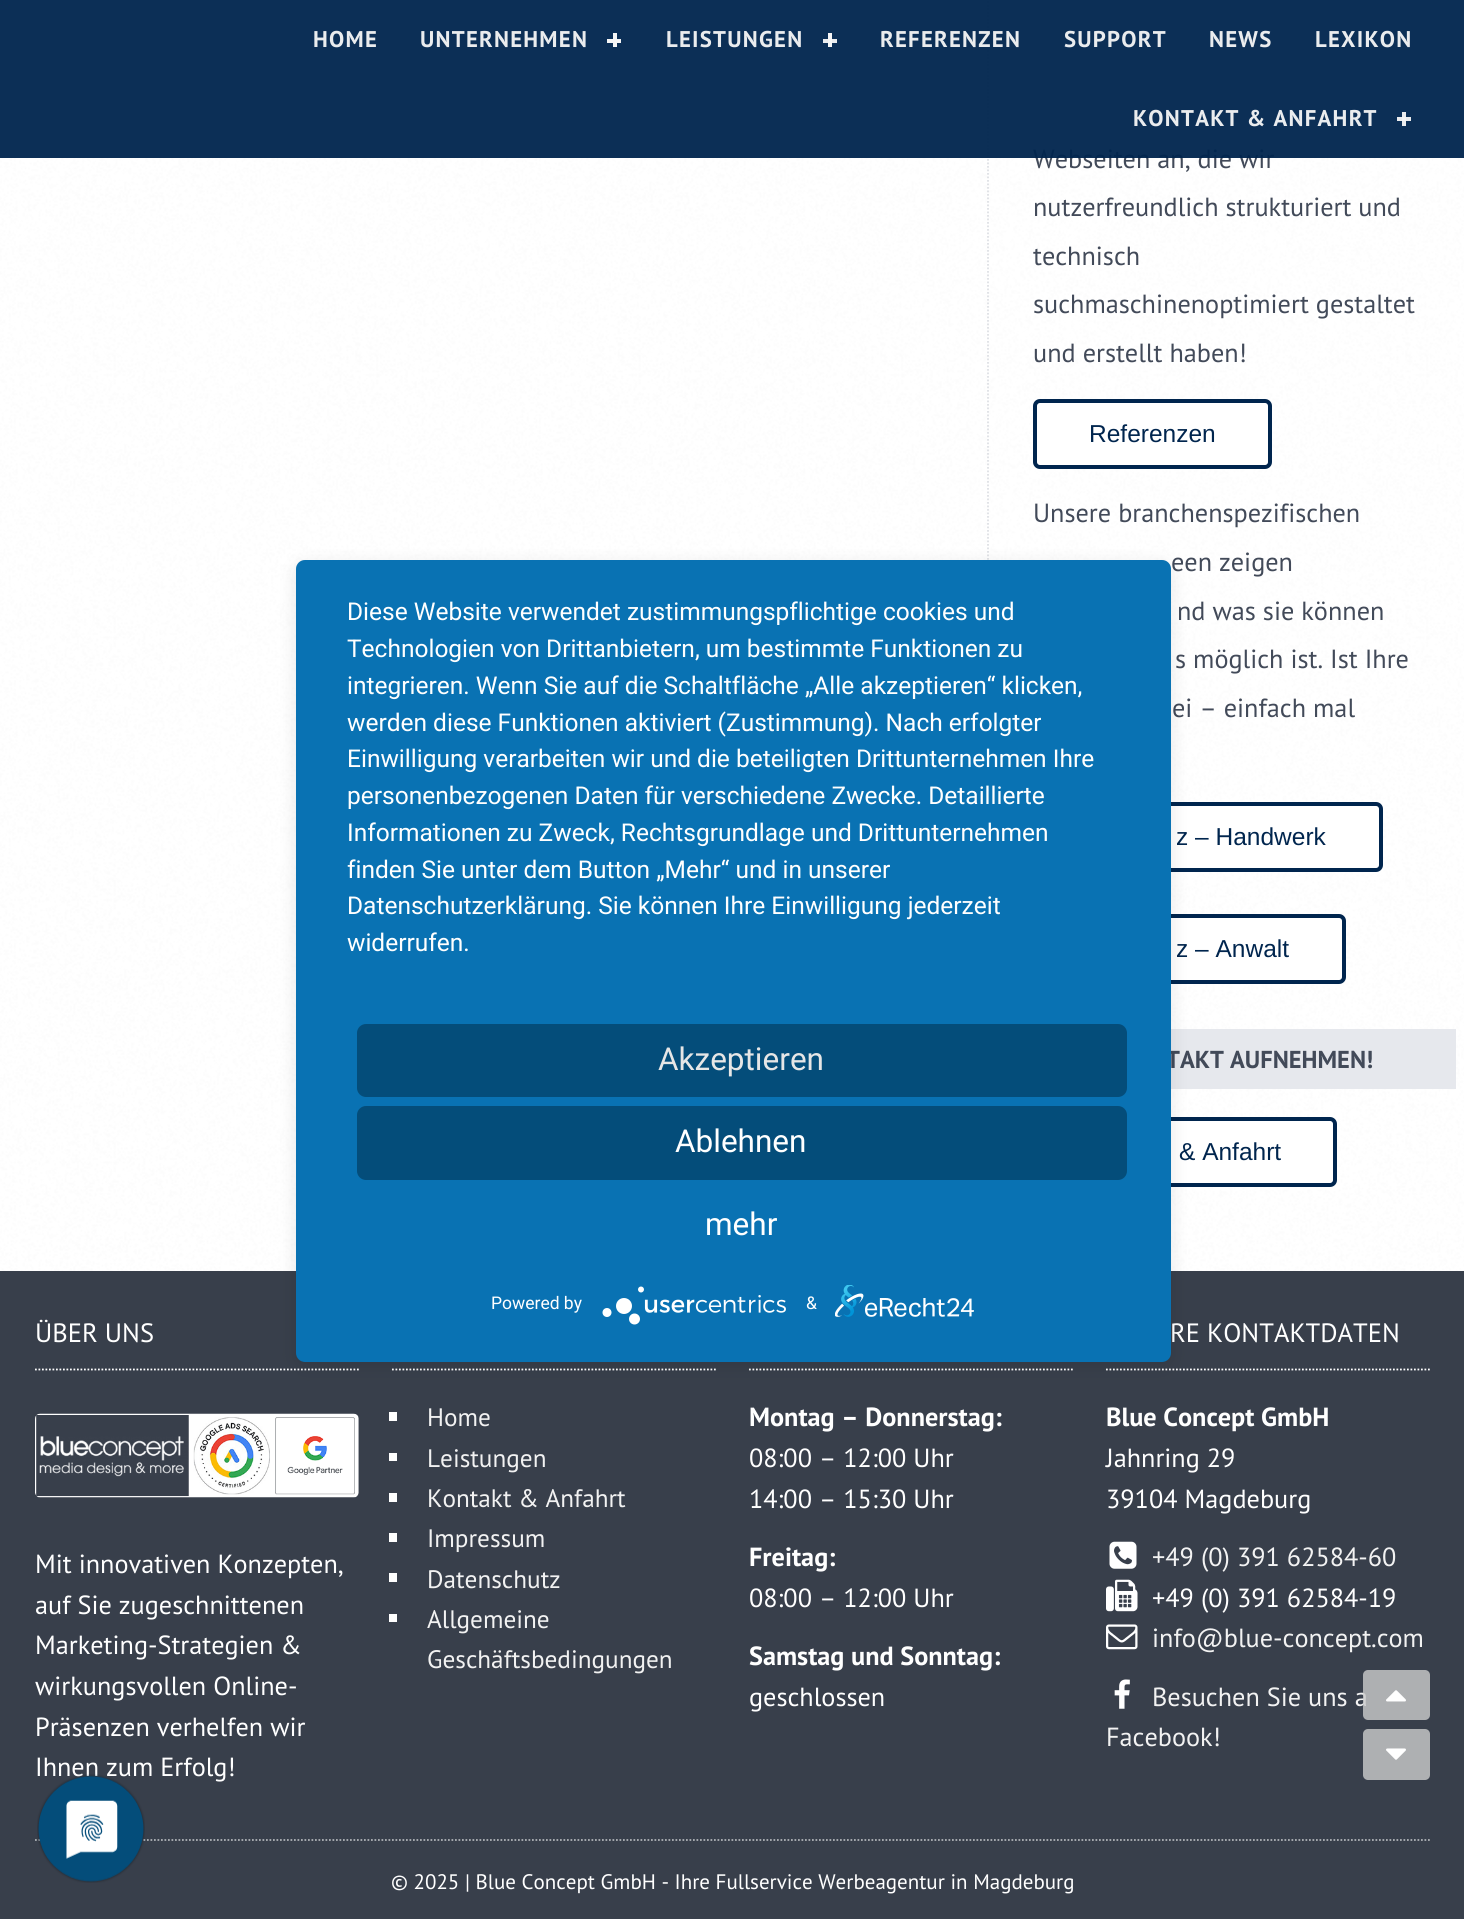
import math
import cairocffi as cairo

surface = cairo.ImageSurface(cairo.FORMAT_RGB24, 1464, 1919)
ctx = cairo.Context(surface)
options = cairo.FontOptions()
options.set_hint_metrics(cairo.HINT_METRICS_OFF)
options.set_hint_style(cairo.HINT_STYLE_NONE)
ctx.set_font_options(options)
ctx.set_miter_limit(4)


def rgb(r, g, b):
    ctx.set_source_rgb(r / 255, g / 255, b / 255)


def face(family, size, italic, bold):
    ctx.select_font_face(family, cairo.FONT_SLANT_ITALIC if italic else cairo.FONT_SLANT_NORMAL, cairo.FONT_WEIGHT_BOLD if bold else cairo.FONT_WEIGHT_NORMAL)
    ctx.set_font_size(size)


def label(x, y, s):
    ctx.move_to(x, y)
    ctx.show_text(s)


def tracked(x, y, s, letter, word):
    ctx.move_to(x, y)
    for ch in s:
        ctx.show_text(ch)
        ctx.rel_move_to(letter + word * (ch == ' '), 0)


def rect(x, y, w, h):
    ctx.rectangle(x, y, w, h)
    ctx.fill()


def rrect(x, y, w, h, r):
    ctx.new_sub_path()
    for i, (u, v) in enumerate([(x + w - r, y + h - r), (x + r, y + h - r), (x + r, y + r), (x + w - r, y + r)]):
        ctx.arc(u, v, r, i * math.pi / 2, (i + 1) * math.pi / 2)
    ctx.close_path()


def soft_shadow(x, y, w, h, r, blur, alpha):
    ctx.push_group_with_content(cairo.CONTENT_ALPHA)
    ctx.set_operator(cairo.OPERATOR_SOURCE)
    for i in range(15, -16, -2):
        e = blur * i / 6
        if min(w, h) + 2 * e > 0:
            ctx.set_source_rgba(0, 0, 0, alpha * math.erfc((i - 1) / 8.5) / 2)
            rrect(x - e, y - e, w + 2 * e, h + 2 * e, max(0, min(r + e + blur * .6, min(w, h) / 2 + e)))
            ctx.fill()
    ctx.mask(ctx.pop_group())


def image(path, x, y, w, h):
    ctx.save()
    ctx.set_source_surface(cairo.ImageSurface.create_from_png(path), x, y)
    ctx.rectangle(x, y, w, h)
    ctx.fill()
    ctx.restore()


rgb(255, 255, 255)
ctx.paint()
image('image0.png', 0, 0, 1464, 1271)
ctx.new_path()
ctx.move_to(988, -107)
ctx.line_to(988, 1020)
rgb(222, 224, 228)
ctx.set_line_width(1.8)
ctx.set_dash([1.75, 1.75])
ctx.stroke()
face('PT Sans', 26.25, 0, 0)
rgb(66, 74, 89)
label(1033, 168, 'Webseiten an, die wir')
ctx.set_source_rgba(0, 0.145, 0.306, 0.95)
rect(0, 0, 1464, 158)
face('PT Sans', 22.75, 0, 1)
rgb(234, 236, 238)
tracked(313, 47, 'HOME', 1.25, 0)
tracked(420, 47, 'UNTERNEHMEN', 1.25, 0)
rgb(246, 246, 246)
rect(613, 33, 4, 14)
rect(607, 39, 14, 4)
rgb(234, 236, 238)
tracked(666, 47, 'LEISTUNGEN', 1.25, 0)
rgb(246, 246, 246)
rect(828, 33, 4, 14)
ctx.set_source_rgba(0.965, 0.965, 0.965, 0.95)
rect(823, 39, 14, 4)
rgb(234, 236, 238)
tracked(880, 47, 'REFERENZEN', 1.25, 0)
tracked(1064, 47, 'SUPPORT', 1.25, 0)
tracked(1209, 47, 'NEWS', 1.25, 0)
tracked(1315, 47, 'LEXIKON', 1.25, 0)
tracked(1133, 126, 'KONTAKT & ANFAHRT', 1.25, 0)
ctx.set_source_rgba(0.965, 0.965, 0.965, 0.95)
rect(1402, 112, 4, 14)
rect(1397, 117, 14, 4)
face('PT Sans', 26.25, 0, 0)
rgb(66, 74, 89)
label(1033, 216, 'nutzerfreundlich strukturiert und')
label(1033, 265, 'technisch')
label(1033, 313, 'suchmaschinenoptimiert gestaltet')
label(1033, 362, 'und erstellt haben!')
rgb(255, 255, 255)
rrect(1035, 401, 235, 66, 5)
ctx.fill_preserve()
rgb(0, 37, 78)
ctx.set_line_width(4)
ctx.set_dash([])
ctx.stroke()
face('Liberation Sans', 24.5, 0, 0)
label(1089, 442, 'Referenzen')
face('PT Sans', 26.25, 0, 0)
rgb(66, 74, 89)
label(1033, 522, 'Unsere branchenspezifischen')
label(1171, 571, 'een zeigen')
label(1177, 620, 'nd was sie können')
label(1175, 668, 's möglich ist. Ist Ihre')
label(1172, 717, 'ei – einfach mal')
rgb(255, 255, 255)
rrect(1035, 804, 346, 66, 5)
ctx.fill_preserve()
rgb(0, 37, 78)
ctx.stroke()
face('Liberation Sans', 24.5, 0, 0)
label(1176, 845, 'z – Handwerk')
rgb(255, 255, 255)
rrect(1035, 916, 309, 66, 5)
ctx.fill_preserve()
rgb(0, 37, 78)
ctx.stroke()
label(1176, 957, 'z – Anwalt')
rgb(230, 232, 237)
rect(1171, 1029, 285, 60)
face('PT Sans', 24.5, 0, 1)
rgb(66, 74, 89)
label(1166, 1068, 'TAKT AUFNEHMEN!')
rgb(255, 255, 255)
rrect(1035, 1119, 300, 66, 5)
ctx.fill_preserve()
rgb(0, 37, 78)
ctx.stroke()
face('Liberation Sans', 24.5, 0, 0)
label(1179, 1160, '& Anfahrt')
rgb(56, 63, 75)
rect(0, 1271, 1464, 648)
ctx.new_path()
ctx.move_to(35, 1369.5)
ctx.line_to(359, 1369.5)
rgb(255, 255, 255)
ctx.set_line_width(1.8)
ctx.set_dash([1.75, 1.75])
ctx.stroke()
face('PT Sans', 26.5, 0, 0)
label(35, 1342, 'ÜBER UNS')
image('image1.png', 35, 1413, 324, 85)
face('PT Sans', 26.25, 0, 0)
label(35, 1573, 'Mit innovativen Konzepten,')
label(35, 1614, 'auf Sie zugeschnittenen')
label(35, 1654, 'Marketing-Strategien &')
label(35, 1695, 'wirkungsvollen Online-')
label(35, 1736, 'Präsenzen verhelfen wir')
label(35, 1776, 'Ihnen zum Erfolg!')
ctx.new_path()
ctx.move_to(392, 1369.5)
ctx.line_to(716, 1369.5)
ctx.stroke()
rect(389, 1412, 8, 9)
face('PT Sans', 25.25, 0, 0)
rgb(242, 242, 242)
label(427, 1426, 'Home')
rgb(255, 255, 255)
rect(389, 1453, 8, 8)
rgb(242, 242, 242)
label(427, 1467, 'Leistungen')
rgb(255, 255, 255)
rect(389, 1493, 8, 9)
rgb(242, 242, 242)
label(427, 1507, 'Kontakt & Anfahrt')
rgb(255, 255, 255)
rect(389, 1533, 8, 9)
rgb(242, 242, 242)
label(427, 1547, 'Impressum')
rgb(255, 255, 255)
rect(389, 1573, 8, 9)
rgb(242, 242, 242)
label(427, 1588, 'Datenschutz')
rgb(255, 255, 255)
rect(389, 1614, 8, 8)
rgb(242, 242, 242)
label(427, 1628, 'Allgemeine')
label(427, 1668, 'Geschäftsbedingungen')
ctx.new_path()
ctx.move_to(749, 1369.5)
ctx.line_to(1073, 1369.5)
rgb(255, 255, 255)
ctx.stroke()
face('PT Sans', 26.25, 0, 1)
label(749, 1426, 'Montag – Donnerstag:')
face('PT Sans', 26.25, 0, 0)
label(749, 1467, '08:00 – 12:00 Uhr')
label(749, 1508, '14:00 – 15:30 Uhr')
face('PT Sans', 26.25, 0, 1)
label(749, 1566, 'Freitag:')
face('PT Sans', 26.25, 0, 0)
label(749, 1607, '08:00 – 12:00 Uhr')
face('PT Sans', 26.25, 0, 1)
label(749, 1665, 'Samstag und Sonntag:')
face('PT Sans', 26.25, 0, 0)
label(749, 1706, 'geschlossen')
ctx.new_path()
ctx.move_to(1106, 1369.5)
ctx.line_to(1430, 1369.5)
ctx.stroke()
face('PT Sans', 26.5, 0, 0)
label(1170, 1342, 'RE KONTAKTDATEN')
face('PT Sans', 26.25, 0, 1)
label(1106, 1426, 'Blue Concept GmbH')
face('PT Sans', 26.25, 0, 0)
label(1106, 1467, 'Jahnring 29')
label(1106, 1508, '39104 Magdeburg')
image('image2.png', 1109, 1541, 28, 28)
rgb(242, 242, 242)
label(1152, 1566, '+49 (0) 391 62584-60')
image('image3.png', 1106, 1579, 32, 33)
rgb(255, 255, 255)
label(1152, 1607, '+49 (0) 391 62584-19')
image('image4.png', 1106, 1624, 32, 26)
rgb(242, 242, 242)
label(1152, 1647, 'info@blue-concept.com')
image('image5.png', 1114, 1679, 16, 30)
label(1152, 1706, 'Besuchen Sie uns a')
label(1106, 1746, 'Facebook!')
ctx.new_path()
ctx.move_to(35, 1840)
ctx.line_to(1430, 1840)
rgb(175, 178, 183)
ctx.stroke()
face('PT Sans', 21, 0, 0)
rgb(255, 255, 255)
label(391, 1889, '© 2025 | Blue Concept GmbH - Ihre Fullservice Werbeagentur in Magdeburg')
ctx.set_source_rgba(0.8, 0.8, 0.8, 0.8)
rrect(1363, 1670, 67, 50, 5)
ctx.fill()
image('image6.png', 1386, 1690, 20, 12)
rgb(174, 176, 178)
rrect(1363, 1729, 67, 51, 5)
ctx.fill()
image('image7.png', 1386, 1748, 20, 12)
rgb(0, 0, 0)
soft_shadow(296, 565, 875, 802, 9, 9, 0.1)
ctx.save()
rrect(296, 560, 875, 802, 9)
ctx.clip()
soft_shadow(296, 571, 875, 801, 0, 31.5, 0.3)
ctx.restore()
rgb(9, 114, 179)
rrect(296, 560, 875, 802, 9)
ctx.fill()
face('Roboto', 24.5, 0, 0)
rgb(255, 255, 255)
label(347, 620, 'Diese Website verwendet zustimmungspflichtige cookies und')
label(347, 657, 'Technologien von Drittanbietern, um bestimmte Funktionen zu')
label(347, 694, 'integrieren. Wenn Sie auf die Schaltfläche „Alle akzeptieren“ klicken,')
label(347, 731, 'werden diese Funktionen aktiviert (Zustimmung). Nach erfolgter')
label(347, 767, 'Einwilligung verarbeiten wir und die beteiligten Drittunternehmen Ihre')
label(347, 804, 'personenbezogenen Daten für verschiedene Zwecke. Detaillierte')
label(347, 841, 'Informationen zu Zweck, Rechtsgrundlage und Drittunternehmen')
label(347, 878, 'finden Sie unter dem Button „Mehr“ und in unserer')
label(347, 914, 'Datenschutzerklärung. Sie können Ihre Einwilligung jederzeit')
label(347, 951, 'widerrufen.')
rgb(4, 77, 122)
rrect(357, 1024, 770, 73, 9)
ctx.fill()
face('Roboto', 31.5, 0, 0)
rgb(230, 230, 230)
label(658, 1070, 'Akzeptieren')
rgb(4, 77, 122)
rrect(357, 1106, 770, 74, 9)
ctx.fill()
rgb(255, 255, 255)
label(675, 1152, 'Ablehnen')
label(705, 1235, 'mehr')
face('Roboto', 17.5, 0, 0)
label(491, 1309, 'Powered by')
image('image8.png', 602, 1286, 184, 39)
label(806, 1309, '&')
image('image9.png', 835, 1285, 139, 32)
image('image10.png', 37, 1774, 108, 109)
surface.write_to_png('render.png')
